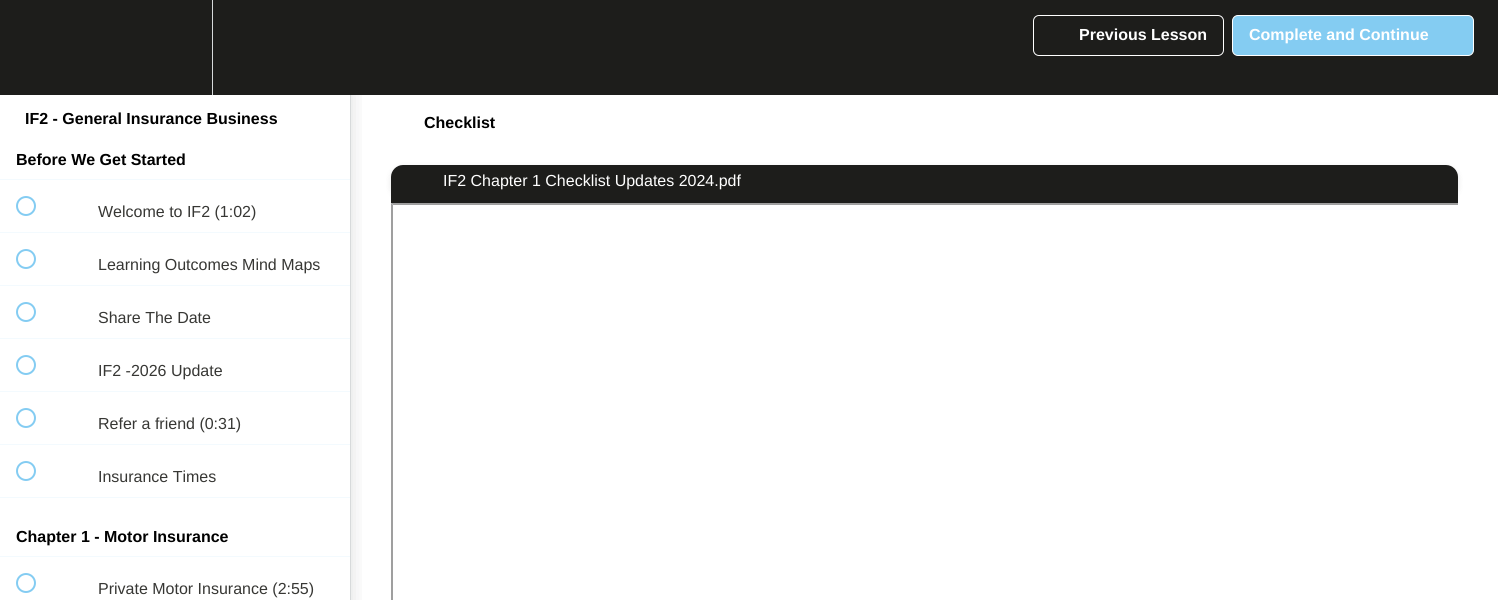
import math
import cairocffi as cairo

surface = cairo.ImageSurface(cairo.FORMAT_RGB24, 1498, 600)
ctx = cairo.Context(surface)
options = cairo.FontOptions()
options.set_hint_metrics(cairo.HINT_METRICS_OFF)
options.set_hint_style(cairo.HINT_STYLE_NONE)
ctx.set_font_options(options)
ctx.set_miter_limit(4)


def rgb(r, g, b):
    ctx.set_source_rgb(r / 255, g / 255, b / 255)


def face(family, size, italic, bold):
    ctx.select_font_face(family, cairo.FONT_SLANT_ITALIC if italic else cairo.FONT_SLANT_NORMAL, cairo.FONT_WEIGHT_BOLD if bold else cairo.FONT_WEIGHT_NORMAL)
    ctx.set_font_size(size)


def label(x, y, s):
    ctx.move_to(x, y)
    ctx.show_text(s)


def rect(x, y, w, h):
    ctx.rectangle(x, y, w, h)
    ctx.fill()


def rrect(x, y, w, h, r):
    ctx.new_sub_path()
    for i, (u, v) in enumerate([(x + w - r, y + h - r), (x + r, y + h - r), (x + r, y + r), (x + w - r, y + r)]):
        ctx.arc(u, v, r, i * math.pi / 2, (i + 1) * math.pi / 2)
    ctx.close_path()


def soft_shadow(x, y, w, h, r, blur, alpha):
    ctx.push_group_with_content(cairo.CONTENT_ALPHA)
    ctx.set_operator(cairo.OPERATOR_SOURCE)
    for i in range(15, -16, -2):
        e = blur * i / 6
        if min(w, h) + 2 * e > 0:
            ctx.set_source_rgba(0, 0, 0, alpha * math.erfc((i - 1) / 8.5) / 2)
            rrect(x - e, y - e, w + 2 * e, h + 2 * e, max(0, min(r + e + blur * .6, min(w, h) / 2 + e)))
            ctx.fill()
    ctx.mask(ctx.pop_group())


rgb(255, 255, 255)
ctx.paint()
ctx.save()
ctx.rectangle(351, 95, 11, 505)
ctx.clip()
rgb(32, 39, 45)
soft_shadow(0, 91, 351, 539, 0, 10, 0.15)
ctx.restore()
rgb(29, 29, 27)
rect(0, 0, 1498, 95)
rgb(215, 218, 219)
rect(212, 0, 1, 95)
rrect(1033.5, 15.5, 190, 40, 5.5)
rgb(255, 255, 255)
ctx.set_line_width(1)
ctx.stroke()
face('Liberation Sans', 16, 0, 1)
label(1079, 40, 'Previous Lesson')
rgb(132, 204, 242)
rrect(1232.5, 15.5, 241, 40, 5.5)
ctx.fill_preserve()
rgb(255, 255, 255)
ctx.stroke()
label(1249, 40, 'Complete and Continue')
rgb(215, 218, 219)
rect(350, 95, 1, 505)
rgb(0, 0, 0)
label(25, 124, 'IF2 - General Insurance Business')
rgb(243, 250, 254)
rect(0, 179, 350, 1)
rgb(0, 0, 0)
label(16, 165, 'Before We Get Started')
rgb(243, 250, 254)
rect(0, 232, 350, 1)
ctx.new_path()
ctx.arc(26, 206, 9, 0, 2 * math.pi)
rgb(132, 204, 242)
ctx.set_line_width(2)
ctx.stroke()
face('Liberation Sans', 16, 0, 0)
rgb(55, 55, 52)
label(98, 217, 'Welcome to IF2 (1:02)')
rgb(243, 250, 254)
rect(0, 285, 350, 1)
ctx.new_path()
ctx.arc(26, 259, 9, 0, 2 * math.pi)
rgb(132, 204, 242)
ctx.stroke()
rgb(55, 55, 52)
label(98, 270, 'Learning Outcomes Mind Maps')
rgb(243, 250, 254)
rect(0, 338, 350, 1)
ctx.new_path()
ctx.arc(26, 312, 9, 0, 2 * math.pi)
rgb(132, 204, 242)
ctx.stroke()
rgb(55, 55, 52)
label(98, 323, 'Share The Date')
rgb(243, 250, 254)
rect(0, 391, 350, 1)
ctx.new_path()
ctx.arc(26, 365, 9, 0, 2 * math.pi)
rgb(132, 204, 242)
ctx.stroke()
rgb(55, 55, 52)
label(98, 376, 'IF2 -2026 Update')
rgb(243, 250, 254)
rect(0, 444, 350, 1)
ctx.new_path()
ctx.arc(26, 418, 9, 0, 2 * math.pi)
rgb(132, 204, 242)
ctx.stroke()
rgb(55, 55, 52)
label(98, 429, 'Refer a friend (0:31)')
rgb(243, 250, 254)
rect(0, 497, 350, 1)
ctx.new_path()
ctx.arc(26, 471, 9, 0, 2 * math.pi)
rgb(132, 204, 242)
ctx.stroke()
rgb(55, 55, 52)
label(98, 482, 'Insurance Times')
rgb(243, 250, 254)
rect(0, 556, 350, 1)
face('Liberation Sans', 16, 0, 1)
rgb(0, 0, 0)
label(16, 542, 'Chapter 1 - Motor Insurance')
ctx.new_path()
ctx.arc(26, 583, 9, 0, 2 * math.pi)
rgb(132, 204, 242)
ctx.stroke()
face('Liberation Sans', 16, 0, 0)
rgb(55, 55, 52)
label(98, 594, 'Private Motor Insurance (2:55)')
face('Liberation Sans', 16, 0, 1)
rgb(0, 0, 0)
label(424, 128, 'Checklist')
rgb(0, 0, 0)
soft_shadow(391, 167, 1067, 32, 12, 3, 0.1)
rgb(29, 29, 27)
ctx.new_path()
ctx.move_to(403, 165)
ctx.line_to(1446, 165)
ctx.curve_to(1452.5, 165, 1458, 170.5, 1458, 177)
ctx.line_to(1458, 197)
ctx.line_to(391, 197)
ctx.line_to(391, 177)
ctx.curve_to(391, 170.5, 396.5, 165, 403, 165)
ctx.close_path()
ctx.fill()
face('Liberation Sans', 16, 0, 0)
rgb(255, 255, 255)
label(443, 186, 'IF2 Chapter 1 Checklist Updates 2024.pdf')
rgb(29, 29, 27)
rect(391, 197, 1067, 6)
rgb(159, 159, 159)
ctx.new_path()
ctx.move_to(391, 203)
ctx.line_to(393, 205)
ctx.line_to(1458, 205)
ctx.line_to(1458, 203)
ctx.close_path()
ctx.fill()
ctx.new_path()
ctx.move_to(391, 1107)
ctx.line_to(391, 203)
ctx.line_to(393, 205)
ctx.line_to(393, 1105)
ctx.close_path()
ctx.fill()
surface.write_to_png('render.png')
